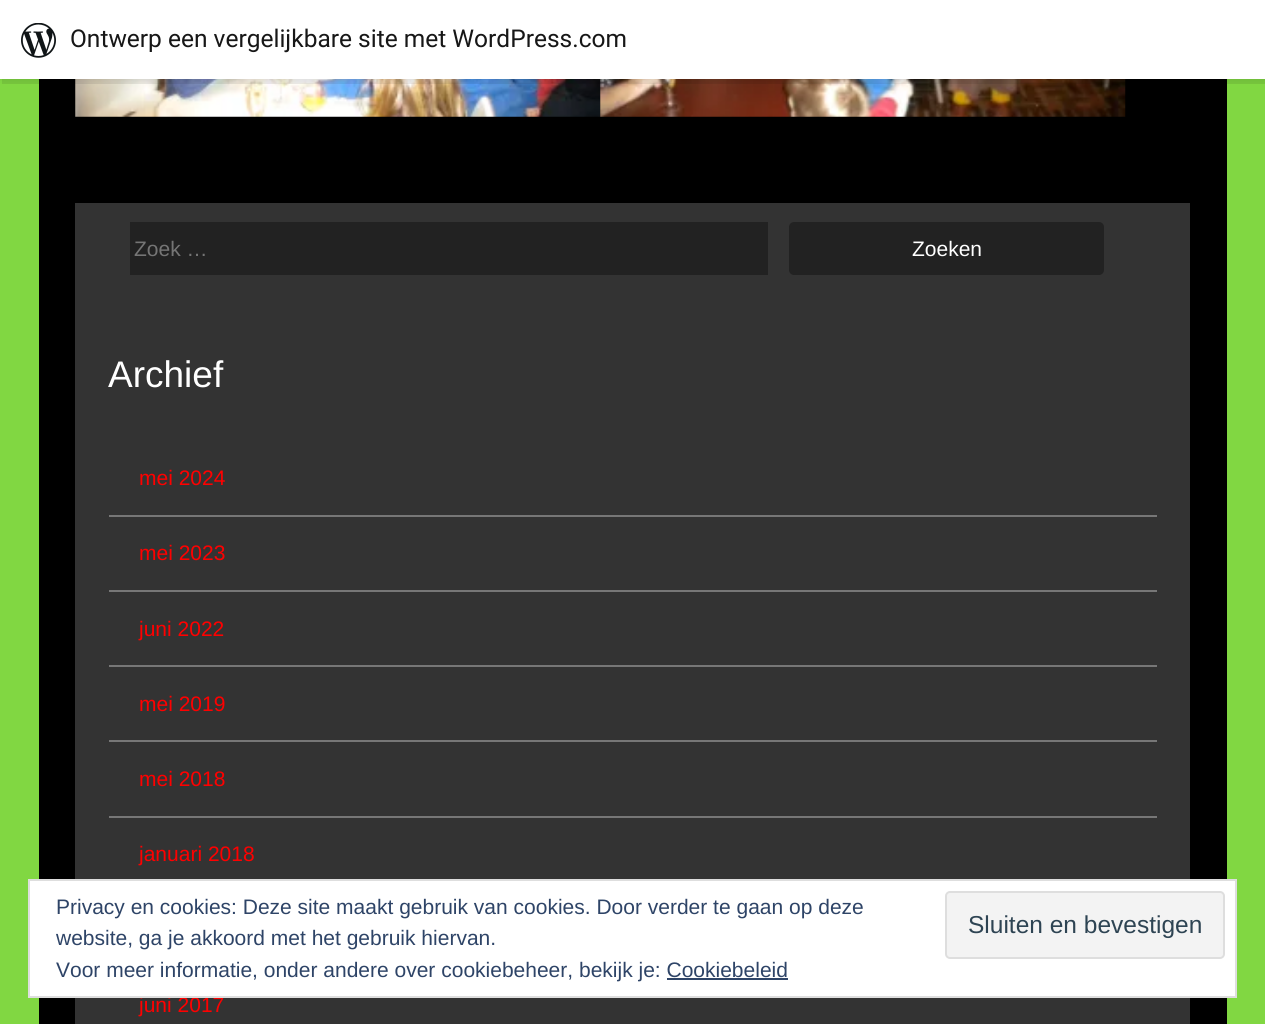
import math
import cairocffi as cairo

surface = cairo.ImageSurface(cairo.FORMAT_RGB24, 1265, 1024)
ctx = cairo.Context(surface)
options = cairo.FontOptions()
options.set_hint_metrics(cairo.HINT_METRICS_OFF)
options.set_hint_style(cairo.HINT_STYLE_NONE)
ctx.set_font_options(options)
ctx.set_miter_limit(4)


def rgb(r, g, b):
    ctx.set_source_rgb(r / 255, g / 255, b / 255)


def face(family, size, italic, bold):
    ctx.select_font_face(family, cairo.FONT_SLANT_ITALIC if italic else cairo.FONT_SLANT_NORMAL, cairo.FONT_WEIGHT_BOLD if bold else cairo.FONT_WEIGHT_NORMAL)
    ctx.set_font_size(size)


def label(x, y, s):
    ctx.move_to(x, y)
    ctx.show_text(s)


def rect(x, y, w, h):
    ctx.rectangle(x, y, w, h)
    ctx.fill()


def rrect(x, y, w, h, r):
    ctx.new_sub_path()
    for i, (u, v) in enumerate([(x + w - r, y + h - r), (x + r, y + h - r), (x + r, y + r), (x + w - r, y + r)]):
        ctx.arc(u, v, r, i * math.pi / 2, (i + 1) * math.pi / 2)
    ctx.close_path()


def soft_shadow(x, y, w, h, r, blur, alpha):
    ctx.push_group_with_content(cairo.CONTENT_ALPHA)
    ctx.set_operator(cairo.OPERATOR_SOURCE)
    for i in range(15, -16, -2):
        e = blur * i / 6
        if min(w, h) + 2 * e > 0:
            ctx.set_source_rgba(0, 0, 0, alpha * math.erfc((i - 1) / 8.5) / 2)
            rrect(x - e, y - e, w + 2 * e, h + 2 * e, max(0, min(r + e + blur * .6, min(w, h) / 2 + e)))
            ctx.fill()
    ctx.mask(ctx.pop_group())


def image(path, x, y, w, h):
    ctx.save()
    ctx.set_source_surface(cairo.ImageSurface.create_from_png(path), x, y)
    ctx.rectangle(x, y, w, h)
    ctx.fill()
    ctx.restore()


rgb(129, 215, 66)
ctx.paint()
rgb(0, 0, 0)
rect(39, 79, 1188, 945)
image('image1.png', 75, 79, 526, 38)
image('image2.png', 600, 79, 526, 38)
rgb(0, 0, 0)
soft_shadow(0, 2, 1265, 79, 0, 2, 0.05)
ctx.set_source_rgba(0, 0, 0, 0.08)
ctx.new_path()
ctx.move_to(2, 79)
ctx.line_to(2, 84)
ctx.line_to(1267, 84)
ctx.line_to(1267, 5)
ctx.line_to(1265, 5)
ctx.line_to(1265, 79)
ctx.close_path()
ctx.fill()
rgb(255, 255, 255)
rect(0, 0, 1265, 79)
image('image0.png', 21, 23, 35, 35)
face('Roboto', 24.5, 0, 0)
rgb(23, 23, 23)
label(70, 47, 'Ontwerp een vergelijkbare site met WordPress.com')
rgb(51, 51, 51)
rect(75, 203, 1115, 821)
rgb(34, 34, 34)
rect(130, 222, 638, 53)
face('Liberation Sans', 21, 0, 0)
rgb(117, 117, 117)
label(134, 256, 'Zoek …')
rgb(34, 34, 34)
rrect(789, 222, 315, 53, 5)
ctx.fill()
rgb(255, 255, 255)
label(912, 256, 'Zoeken')
face('Liberation Sans', 37, 0, 0)
label(108, 387, 'Archief')
face('Liberation Sans', 21, 0, 0)
rgb(255, 0, 0)
label(139, 485, 'mei 2024')
rgb(119, 119, 119)
rect(109, 515, 1048, 2)
rgb(255, 0, 0)
label(139, 560, 'mei 2023')
rgb(119, 119, 119)
rect(109, 590, 1048, 2)
rgb(255, 0, 0)
label(139, 636, 'juni 2022')
rgb(119, 119, 119)
rect(109, 665, 1048, 2)
rgb(255, 0, 0)
label(139, 711, 'mei 2019')
rgb(119, 119, 119)
rect(109, 740, 1048, 2)
rgb(255, 0, 0)
label(139, 786, 'mei 2018')
rgb(119, 119, 119)
rect(109, 816, 1048, 2)
rgb(255, 0, 0)
label(139, 861, 'januari 2018')
label(139, 1012, 'juni 2017')
rgb(255, 255, 255)
ctx.rectangle(29, 880, 1207, 117)
ctx.fill_preserve()
rgb(222, 222, 222)
ctx.stroke()
rgb(46, 68, 103)
label(56, 914, 'Privacy en cookies: Deze site maakt gebruik van cookies. Door verder te gaan op deze')
label(56, 945, 'website, ga je akkoord met het gebruik hiervan.')
rgb(243, 243, 243)
rrect(946, 892, 278, 66, 4)
ctx.fill_preserve()
rgb(222, 222, 222)
ctx.stroke()
face('Liberation Sans', 24.5, 0, 0)
rgb(46, 68, 83)
label(968, 933, 'Sluiten en bevestigen')
face('Liberation Sans', 21, 0, 0)
rgb(46, 68, 103)
label(56, 977, 'Voor meer informatie, onder andere over cookiebeheer, bekijk je: Cookiebeleid')
rect(667, 978, 121, 2)
surface.write_to_png('render.png')
